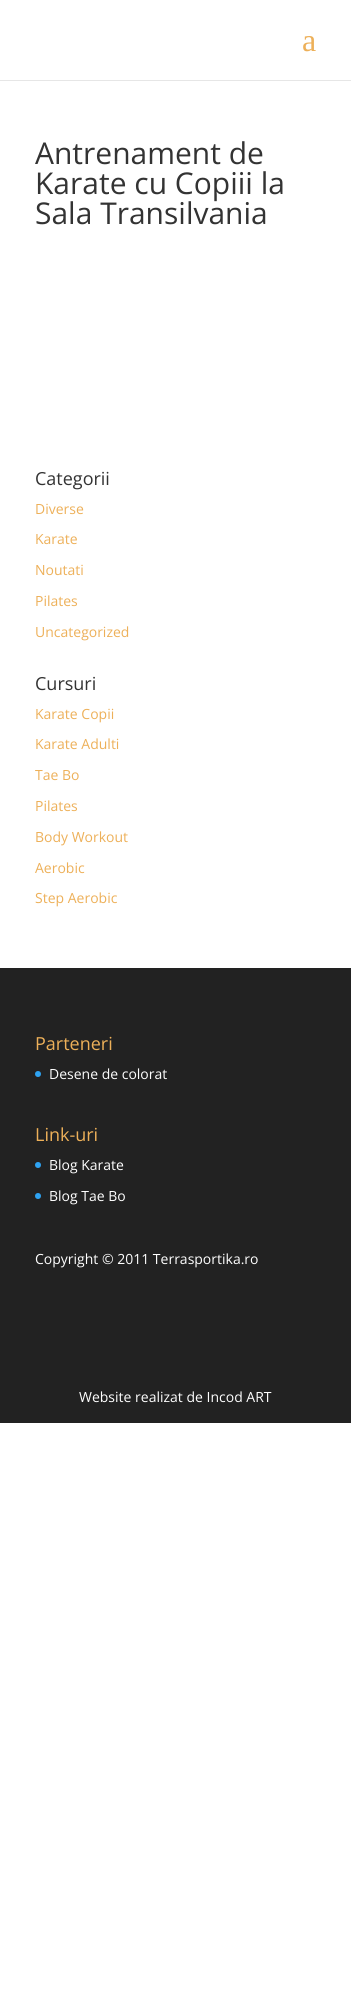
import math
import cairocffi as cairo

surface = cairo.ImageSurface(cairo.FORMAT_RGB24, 351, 1995)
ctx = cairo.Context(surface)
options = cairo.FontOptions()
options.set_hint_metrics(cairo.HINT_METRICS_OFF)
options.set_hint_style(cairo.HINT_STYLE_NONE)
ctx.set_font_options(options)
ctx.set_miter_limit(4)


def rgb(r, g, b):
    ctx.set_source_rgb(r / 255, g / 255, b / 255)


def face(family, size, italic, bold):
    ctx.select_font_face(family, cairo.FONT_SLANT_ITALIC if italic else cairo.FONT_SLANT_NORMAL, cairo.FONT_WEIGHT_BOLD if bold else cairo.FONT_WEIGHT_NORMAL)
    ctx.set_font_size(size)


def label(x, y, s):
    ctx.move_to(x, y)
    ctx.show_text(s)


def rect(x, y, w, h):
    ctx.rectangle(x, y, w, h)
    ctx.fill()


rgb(255, 255, 255)
ctx.paint()
rgb(230, 230, 230)
rect(0, 80, 351, 1)
face('Liberation Serif', 32, 0, 0)
rgb(237, 176, 89)
label(302, 51, 'a')
face('Open Sans', 30, 0, 0)
rgb(51, 51, 51)
label(35, 164, 'Antrenament de')
label(35, 194, 'Karate cu Copiii la')
label(35, 224, 'Sala Transilvania')
face('Open Sans', 18, 0, 0)
label(35, 485, 'Categorii')
face('Open Sans', 14, 0, 0)
rgb(237, 176, 89)
label(35, 514, 'Diverse')
label(35, 544, 'Karate')
label(35, 575, 'Noutati')
label(35, 606, 'Pilates')
label(35, 637, 'Uncategorized')
face('Open Sans', 18, 0, 0)
rgb(51, 51, 51)
label(35, 690, 'Cursuri')
face('Open Sans', 14, 0, 0)
rgb(237, 176, 89)
label(35, 719, 'Karate Copii')
label(35, 749, 'Karate Adulti')
label(35, 780, 'Tae Bo')
label(35, 811, 'Pilates')
label(35, 842, 'Body Workout')
label(35, 873, 'Aerobic')
label(35, 903, 'Step Aerobic')
rgb(34, 34, 34)
rect(0, 968, 351, 455)
face('Open Sans', 18, 0, 0)
rgb(237, 176, 89)
label(35, 1050, 'Parteneri')
rgb(46, 163, 242)
ctx.new_path()
ctx.arc(38, 1074, 3, 0, 2 * math.pi)
ctx.fill()
face('Open Sans', 14, 0, 0)
rgb(255, 255, 255)
label(49, 1079, 'Desene de colorat')
face('Open Sans', 18, 0, 0)
rgb(237, 176, 89)
label(35, 1141, 'Link-uri')
rgb(46, 163, 242)
ctx.new_path()
ctx.arc(38, 1165, 3, 0, 2 * math.pi)
ctx.fill()
face('Open Sans', 14, 0, 0)
rgb(255, 255, 255)
label(49, 1170, 'Blog Karate')
rgb(46, 163, 242)
ctx.new_path()
ctx.arc(38, 1196, 3, 0, 2 * math.pi)
ctx.fill()
rgb(255, 255, 255)
label(49, 1201, 'Blog Tae Bo')
label(35, 1264, 'Copyright © 2011 Terrasportika.ro')
label(79, 1402, 'Website realizat de Incod ART')
surface.write_to_png('render.png')
